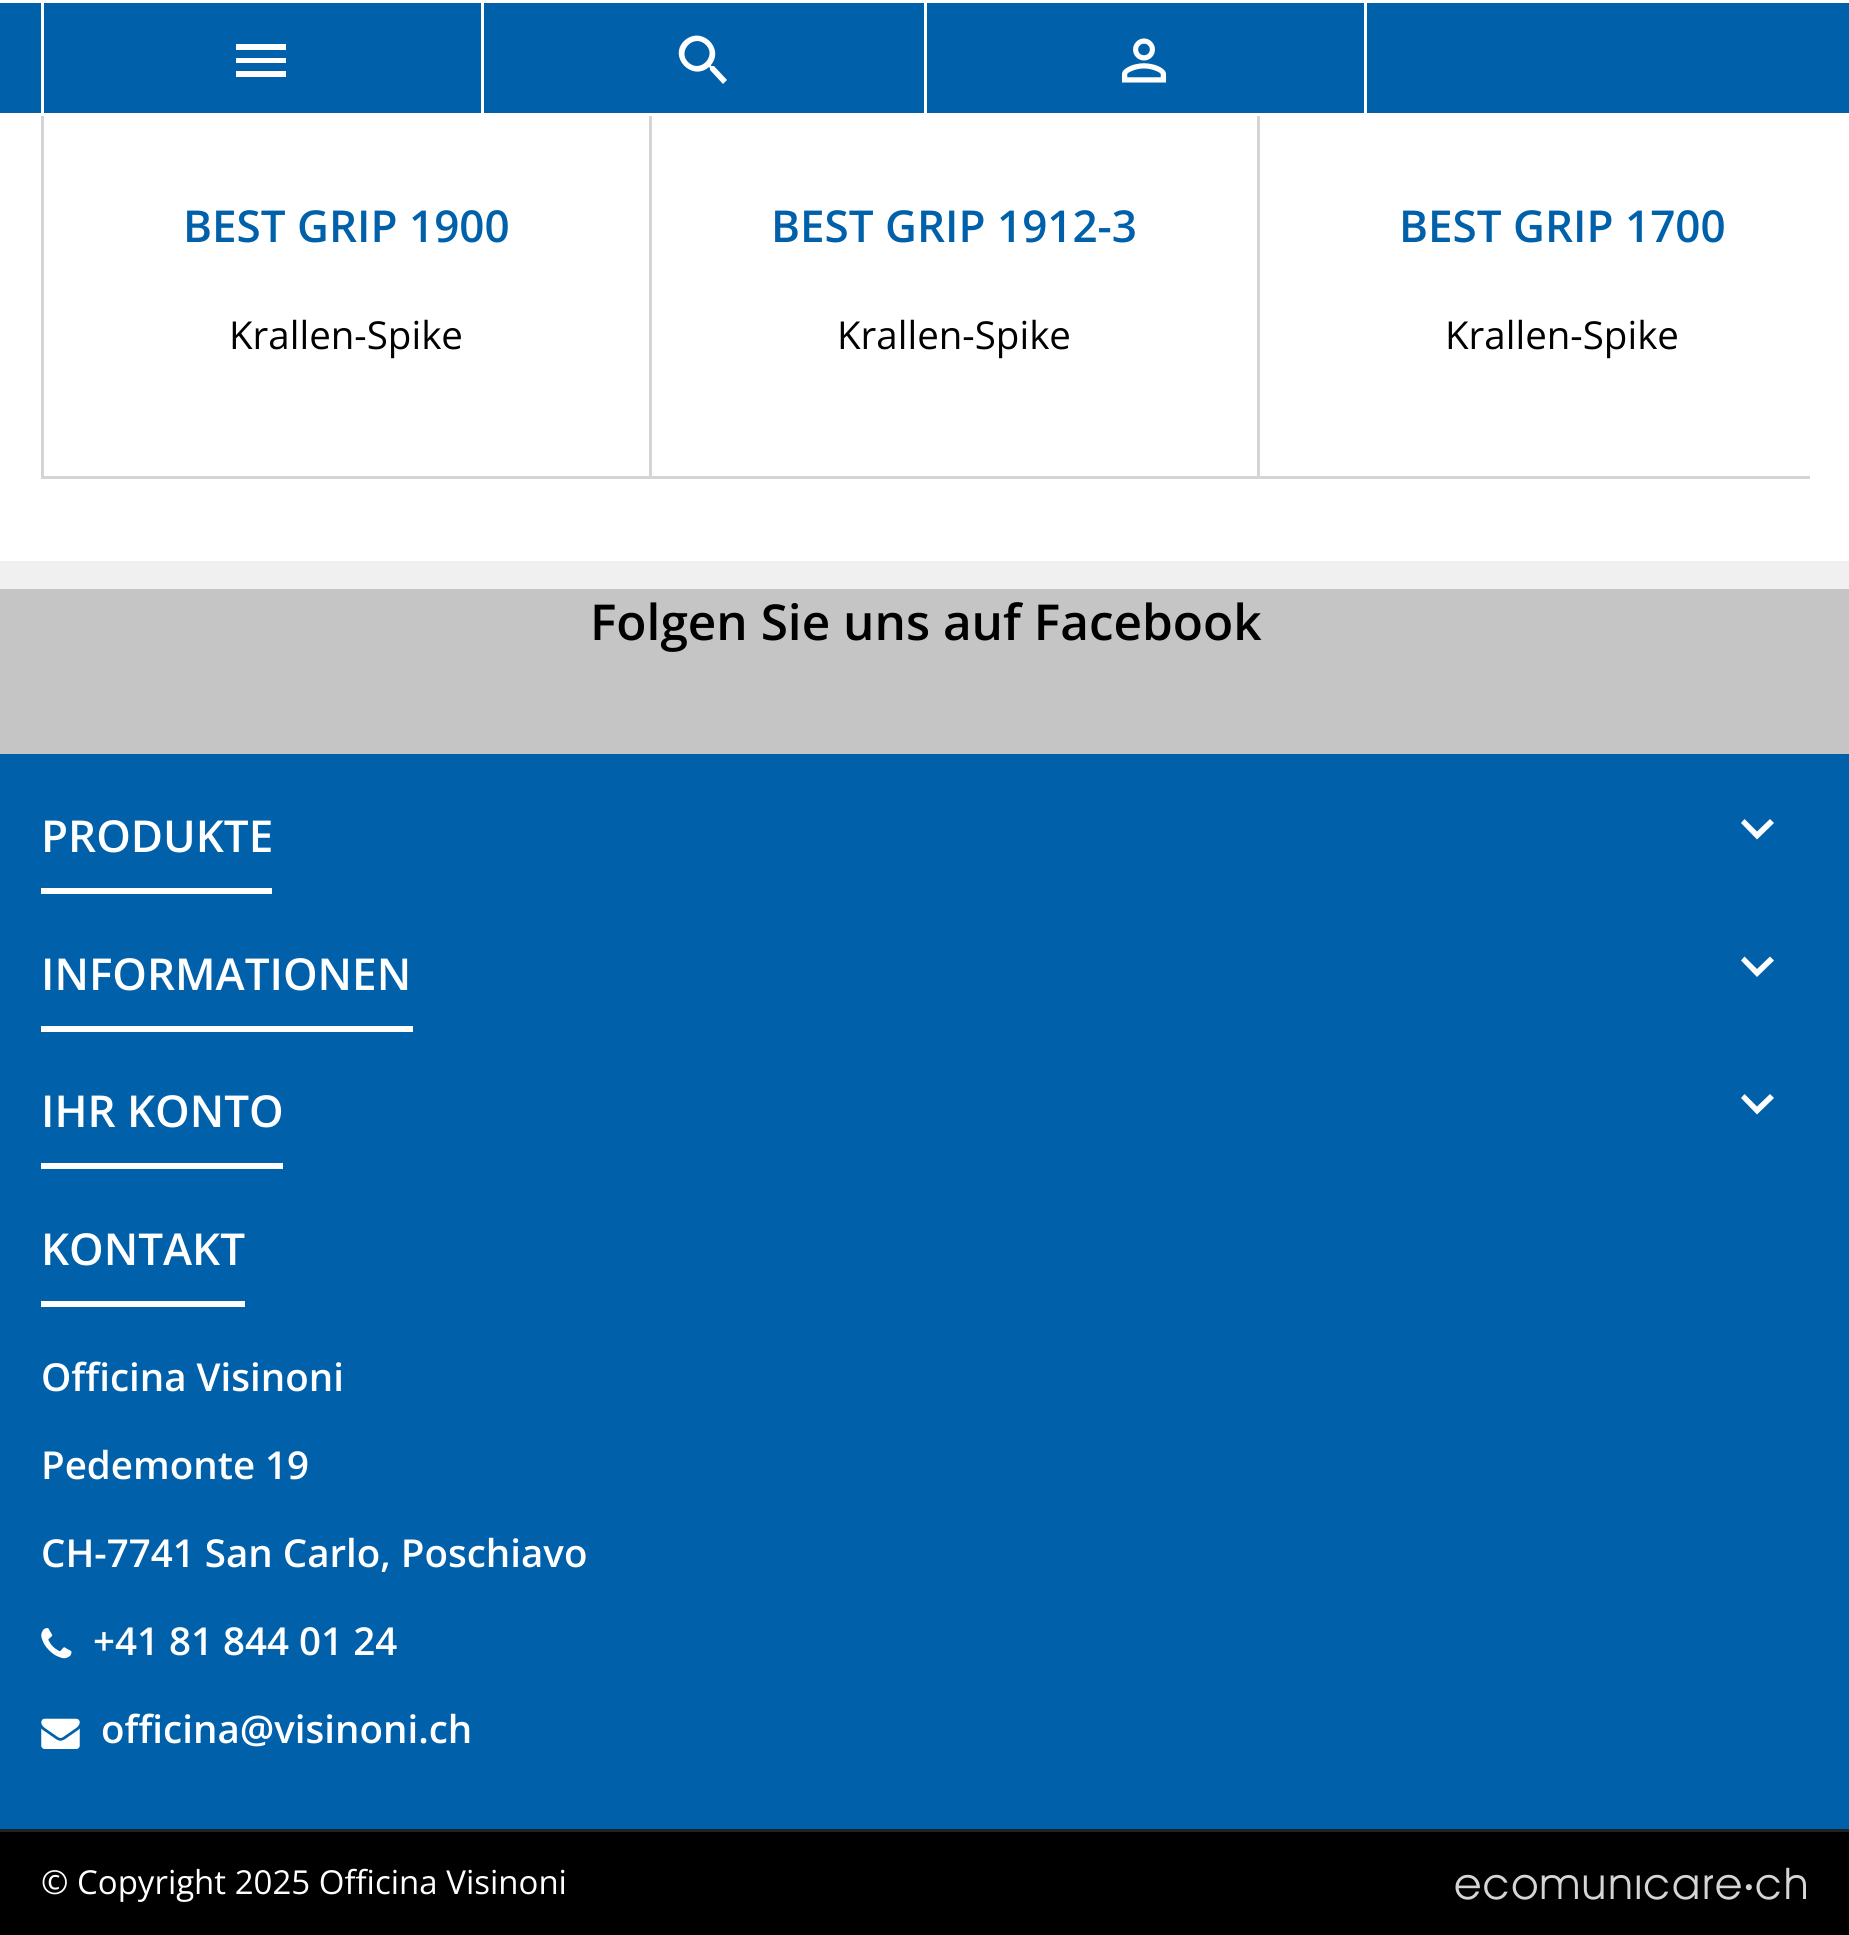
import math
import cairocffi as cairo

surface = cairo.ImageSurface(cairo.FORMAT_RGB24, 1849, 1935)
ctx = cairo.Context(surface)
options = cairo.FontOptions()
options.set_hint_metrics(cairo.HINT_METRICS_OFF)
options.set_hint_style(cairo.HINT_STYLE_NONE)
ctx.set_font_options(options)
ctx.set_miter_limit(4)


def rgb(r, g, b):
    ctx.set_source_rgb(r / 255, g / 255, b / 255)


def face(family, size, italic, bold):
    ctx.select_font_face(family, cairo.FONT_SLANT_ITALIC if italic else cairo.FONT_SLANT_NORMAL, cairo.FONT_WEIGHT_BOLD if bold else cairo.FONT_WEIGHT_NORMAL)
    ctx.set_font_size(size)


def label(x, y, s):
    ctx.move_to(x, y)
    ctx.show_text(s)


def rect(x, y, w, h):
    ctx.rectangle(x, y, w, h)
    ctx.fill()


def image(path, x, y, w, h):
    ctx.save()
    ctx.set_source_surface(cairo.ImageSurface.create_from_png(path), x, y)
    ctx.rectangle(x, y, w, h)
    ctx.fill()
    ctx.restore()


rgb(240, 240, 240)
ctx.paint()
rgb(255, 255, 255)
rect(0, 116, 1849, 445)
ctx.rectangle(42.5, -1.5, 608, 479)
rgb(214, 212, 212)
ctx.set_line_width(3)
ctx.stroke()
ctx.rectangle(650.5, -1.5, 608, 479)
ctx.stroke()
ctx.save()
ctx.rectangle(41, 0, 1769, 479)
ctx.clip()
ctx.rectangle(1258.5, -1.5, 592, 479)
ctx.stroke()
ctx.restore()
rgb(0, 96, 170)
rect(0, 3, 1849, 110)
rgb(255, 255, 255)
rect(0, 0, 1849, 3)
rect(0, 113, 1849, 3)
rect(481, 3, 3, 110)
rect(41, 3, 3, 110)
ctx.new_path()
ctx.move_to(236, 44)
ctx.line_to(286, 44)
ctx.line_to(286, 50)
ctx.line_to(236, 50)
ctx.close_path()
ctx.move_to(236, 63)
ctx.line_to(236, 58)
ctx.line_to(286, 58)
ctx.line_to(286, 63)
ctx.close_path()
ctx.move_to(236, 77)
ctx.line_to(236, 71)
ctx.line_to(286, 71)
ctx.line_to(286, 77)
ctx.close_path()
ctx.fill()
rect(924, 3, 3, 110)
ctx.new_path()
ctx.move_to(688, 62)
ctx.curve_to(700, 74, 717, 56, 706, 45)
ctx.curve_to(694, 33, 677, 51, 688, 62)
ctx.close_path()
ctx.move_to(714, 66)
ctx.line_to(727, 80)
ctx.line_to(723, 84)
ctx.line_to(710, 70)
ctx.line_to(710, 68)
ctx.line_to(709, 67)
ctx.curve_to(692, 82, 668, 57, 684, 41)
ctx.curve_to(701, 25, 725, 48, 711, 65)
ctx.line_to(711, 66)
ctx.close_path()
ctx.fill()
rect(1364, 3, 3, 110)
image('image0.png', 1121, 38, 46, 45)
face('Open Sans SemiBold', 44, 0, 0)
rgb(0, 96, 170)
label(183, 242, 'BEST GRIP 1900')
face('Open Sans', 38.5, 0, 0)
rgb(0, 0, 0)
label(229, 349, 'Krallen-Spike')
face('Open Sans SemiBold', 44, 0, 0)
rgb(0, 96, 170)
label(771, 242, 'BEST GRIP 1912-3')
face('Open Sans', 38.5, 0, 0)
rgb(0, 0, 0)
label(837, 349, 'Krallen-Spike')
face('Open Sans SemiBold', 44, 0, 0)
rgb(0, 96, 170)
label(1399, 242, 'BEST GRIP 1700')
face('Open Sans', 38.5, 0, 0)
rgb(0, 0, 0)
label(1445, 349, 'Krallen-Spike')
rgb(197, 197, 197)
rect(0, 589, 1849, 165)
face('Open Sans SemiBold', 49.5, 0, 0)
rgb(0, 0, 0)
label(590, 640, 'Folgen Sie uns auf Facebook')
rgb(0, 96, 170)
rect(0, 754, 1849, 1075)
rgb(255, 255, 255)
rect(41, 888, 231, 6)
face('Open Sans SemiBold', 44, 0, 0)
label(41, 852, 'PRODUKTE')
ctx.new_path()
ctx.move_to(1744.5, 819)
ctx.line_to(1757, 831.5)
ctx.line_to(1770, 819)
ctx.line_to(1774, 823)
ctx.line_to(1757, 839.5)
ctx.line_to(1741, 823)
ctx.close_path()
ctx.fill()
rect(41, 1026, 372, 6)
label(41, 990, 'INFORMATIONEN')
ctx.new_path()
ctx.move_to(1744.5, 956.5)
ctx.line_to(1757, 969)
ctx.line_to(1770, 956.5)
ctx.line_to(1774, 960.5)
ctx.line_to(1757, 977)
ctx.line_to(1741, 960.5)
ctx.close_path()
ctx.fill()
rect(41, 1163, 242, 6)
label(41, 1127, 'IHR KONTO')
ctx.new_path()
ctx.move_to(1744.5, 1094)
ctx.line_to(1757, 1106.5)
ctx.line_to(1770, 1094)
ctx.line_to(1774, 1098)
ctx.line_to(1757, 1114.5)
ctx.line_to(1741, 1098)
ctx.close_path()
ctx.fill()
rect(41, 1301, 204, 6)
label(41, 1265, 'KONTAKT')
face('Open Sans SemiBold', 38.5, 0, 0)
label(41, 1391, 'Officina Visinoni')
label(41, 1479, 'Pedemonte 19')
label(41, 1567, 'CH-7741 San Carlo, Poschiavo')
image('image1.png', 41, 1628, 31, 31)
label(93, 1655, '+41 81 844 01 24')
image('image2.png', 41, 1718, 39, 31)
label(101, 1743, 'officina@visinoni.ch')
rgb(0, 0, 0)
rect(0, 1832, 1849, 103)
rgb(34, 34, 34)
rect(0, 1829, 1849, 3)
face('Open Sans', 33, 0, 0)
rgb(255, 255, 255)
label(41, 1894, '© Copyright 2025 Officina Visinoni')
image('image3.png', 1455, 1867, 351, 33)
surface.write_to_png('render.png')
